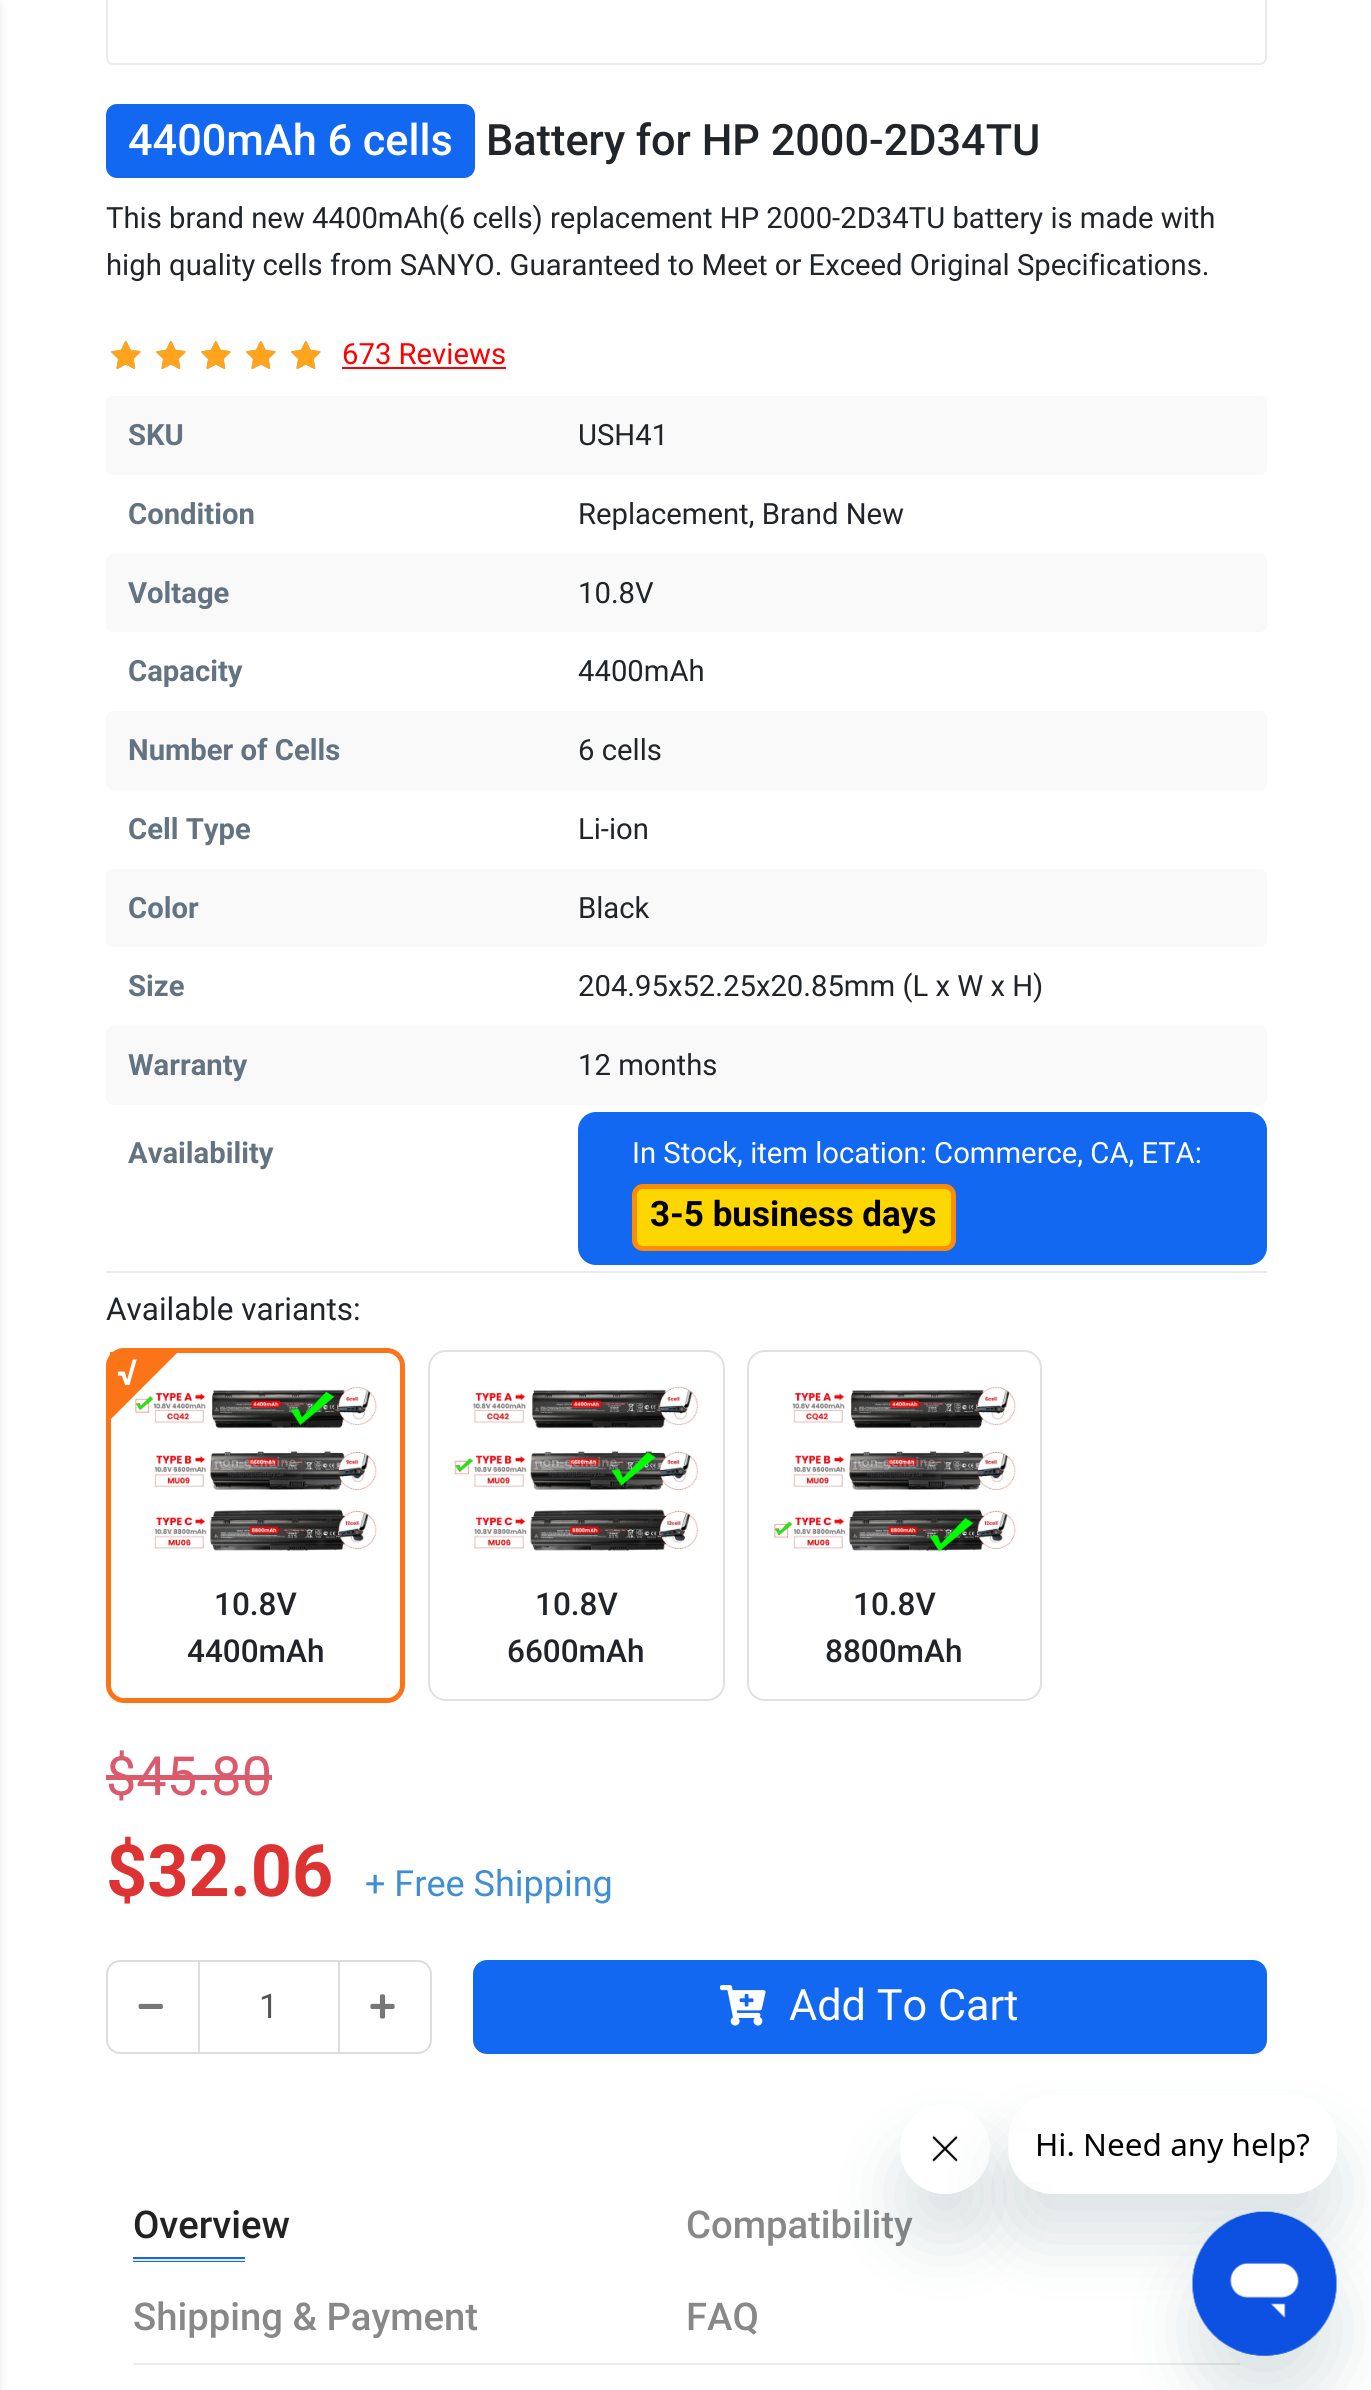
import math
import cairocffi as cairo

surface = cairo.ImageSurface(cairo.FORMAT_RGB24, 1371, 2390)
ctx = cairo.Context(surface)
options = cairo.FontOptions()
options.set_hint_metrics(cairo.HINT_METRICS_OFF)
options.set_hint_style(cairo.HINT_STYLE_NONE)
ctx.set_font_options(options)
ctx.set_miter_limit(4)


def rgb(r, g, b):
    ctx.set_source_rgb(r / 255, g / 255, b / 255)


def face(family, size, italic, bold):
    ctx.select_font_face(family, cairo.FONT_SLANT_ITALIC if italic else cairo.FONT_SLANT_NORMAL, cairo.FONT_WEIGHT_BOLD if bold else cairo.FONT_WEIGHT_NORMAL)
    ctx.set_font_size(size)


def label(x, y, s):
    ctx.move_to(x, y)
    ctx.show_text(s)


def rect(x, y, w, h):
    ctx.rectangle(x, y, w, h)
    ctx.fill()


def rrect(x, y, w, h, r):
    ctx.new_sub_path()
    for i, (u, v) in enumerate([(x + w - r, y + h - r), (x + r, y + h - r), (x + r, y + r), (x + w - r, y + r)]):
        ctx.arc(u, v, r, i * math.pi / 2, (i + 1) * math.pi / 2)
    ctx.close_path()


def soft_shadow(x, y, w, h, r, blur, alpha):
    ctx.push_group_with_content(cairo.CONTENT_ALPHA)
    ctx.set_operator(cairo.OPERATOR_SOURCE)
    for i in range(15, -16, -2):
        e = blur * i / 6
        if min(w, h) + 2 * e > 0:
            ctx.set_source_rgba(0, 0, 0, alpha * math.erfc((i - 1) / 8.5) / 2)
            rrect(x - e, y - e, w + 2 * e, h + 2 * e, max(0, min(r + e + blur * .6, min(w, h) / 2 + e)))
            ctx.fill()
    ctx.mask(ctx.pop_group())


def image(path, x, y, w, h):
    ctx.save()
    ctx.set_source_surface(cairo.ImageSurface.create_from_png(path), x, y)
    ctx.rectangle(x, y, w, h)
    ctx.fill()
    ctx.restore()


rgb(255, 255, 255)
ctx.paint()
rgb(0, 0, 0)
soft_shadow(-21, 5, 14, 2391, 0, 7, 0.3)
rrect(107, -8, 1159, 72, 6)
ctx.set_source_rgba(0.502, 0.502, 0.502, 0.16)
ctx.stroke()
rgb(18, 104, 241)
rrect(106, 104, 369, 74, 11)
ctx.fill()
face('Roboto Medium', 43.25, 0, 0)
rgb(255, 255, 255)
label(128, 155, '4400mAh 6 cells')
rgb(33, 37, 41)
label(486, 155, 'Battery for HP 2000-2D34TU')
face('Roboto', 29.25, 0, 0)
label(106, 228, 'This brand new 4400mAh(6 cells) replacement HP 2000-2D34TU battery is made with')
label(106, 275, 'high quality cells from SANYO. Guaranteed to Meet or Exceed Original Specifications.')
image('image0.png', 111, 341, 30, 28)
image('image0.png', 156, 341, 30, 28)
image('image0.png', 201, 341, 30, 28)
image('image0.png', 246, 341, 30, 28)
image('image0.png', 291, 341, 30, 28)
image('image1.png', 111, 341, 30, 28)
image('image1.png', 156, 341, 30, 28)
image('image1.png', 201, 341, 30, 28)
image('image1.png', 246, 341, 30, 28)
image('image1.png', 291, 341, 30, 28)
rgb(255, 0, 0)
label(342, 364, '673 Reviews')
rect(342, 367, 164, 2)
rgb(249, 249, 249)
rrect(106, 396, 1161, 79, 7)
ctx.fill()
face('Roboto', 29.25, 0, 1)
rgb(99, 115, 129)
label(128, 445, 'SKU')
face('Roboto', 29.25, 0, 0)
rgb(33, 37, 41)
label(578, 445, 'USH41')
face('Roboto', 29.25, 0, 1)
rgb(99, 115, 129)
label(128, 524, 'Condition')
face('Roboto', 29.25, 0, 0)
rgb(33, 37, 41)
label(578, 524, 'Replacement, Brand New')
rgb(249, 249, 249)
rrect(106, 554, 1161, 78, 7)
ctx.fill()
face('Roboto', 29.25, 0, 1)
rgb(99, 115, 129)
label(128, 603, 'Voltage')
face('Roboto', 29.25, 0, 0)
rgb(33, 37, 41)
label(578, 603, '10.8V')
face('Roboto', 29.25, 0, 1)
rgb(99, 115, 129)
label(128, 681, 'Capacity')
face('Roboto', 29.25, 0, 0)
rgb(33, 37, 41)
label(578, 681, '4400mAh')
rgb(249, 249, 249)
rrect(106, 711, 1161, 79, 7)
ctx.fill()
face('Roboto', 29.25, 0, 1)
rgb(99, 115, 129)
label(128, 760, 'Number of Cells')
face('Roboto', 29.25, 0, 0)
rgb(33, 37, 41)
label(578, 760, '6 cells')
face('Roboto', 29.25, 0, 1)
rgb(99, 115, 129)
label(128, 839, 'Cell Type')
face('Roboto', 29.25, 0, 0)
rgb(33, 37, 41)
label(578, 839, 'Li-ion')
rgb(249, 249, 249)
rrect(106, 869, 1161, 78, 7)
ctx.fill()
face('Roboto', 29.25, 0, 1)
rgb(99, 115, 129)
label(128, 918, 'Color')
face('Roboto', 29.25, 0, 0)
rgb(33, 37, 41)
label(578, 918, 'Black')
face('Roboto', 29.25, 0, 1)
rgb(99, 115, 129)
label(128, 996, 'Size')
face('Roboto', 29.25, 0, 0)
rgb(33, 37, 41)
label(578, 996, '204.95x52.25x20.85mm (L x W x H)')
rgb(249, 249, 249)
rrect(106, 1026, 1161, 79, 7)
ctx.fill()
face('Roboto', 29.25, 0, 1)
rgb(99, 115, 129)
label(128, 1075, 'Warranty')
face('Roboto', 29.25, 0, 0)
rgb(33, 37, 41)
label(578, 1075, '12 months')
rgb(235, 235, 235)
rect(106, 1271, 1161, 2)
face('Roboto', 29.25, 0, 1)
rgb(99, 115, 129)
label(128, 1163, 'Availability')
rgb(18, 104, 241)
rrect(578, 1112, 689, 153, 18)
ctx.fill()
face('Roboto', 29.25, 0, 0)
rgb(255, 255, 255)
label(632, 1163, 'In Stock, item location: Commerce, CA, ETA:')
rgb(255, 215, 0)
rrect(634.5, 1186.5, 319, 62, 8.5)
ctx.fill_preserve()
rgb(255, 140, 0)
ctx.set_line_width(5)
ctx.stroke()
face('Roboto', 35, 0, 1)
rgb(0, 0, 0)
label(650, 1226, '3-5 business days')
face('Roboto', 31.5, 0, 0)
rgb(33, 37, 41)
label(106, 1320, 'Available variants:')
rrect(108.5, 1350.5, 294, 350, 15.5)
rgb(252, 116, 24)
ctx.stroke()
image('image2.png', 135, 1386, 243, 165)
ctx.new_path()
ctx.move_to(110, 1420)
ctx.line_to(110, 1352)
ctx.line_to(178, 1352)
ctx.close_path()
ctx.fill()
face('Roboto', 36, 0, 1)
rgb(255, 255, 255)
label(117, 1385, '√')
face('Roboto Medium', 31.5, 0, 0)
rgb(33, 37, 41)
label(214, 1615, '10.8V')
label(187, 1662, '4400mAh')
rrect(429, 1351, 295, 349, 17)
rgb(223, 226, 225)
ctx.set_line_width(2)
ctx.stroke()
image('image3.png', 454, 1386, 245, 165)
rgb(33, 37, 41)
label(535, 1615, '10.8V')
label(507, 1662, '6600mAh')
rrect(748, 1351, 293, 349, 17)
rgb(223, 226, 225)
ctx.stroke()
image('image4.png', 774, 1386, 243, 166)
rgb(33, 37, 41)
label(853, 1615, '10.8V')
label(825, 1662, '8800mAh')
face('Roboto', 54, 0, 0)
rgb(219, 90, 107)
label(106, 1795, '$45.80')
rect(106, 1775, 166, 5)
face('Roboto', 72, 0, 1)
rgb(221, 51, 51)
label(106, 1896, '$32.06')
face('Roboto', 36, 0, 0)
rgb(64, 142, 212)
label(365, 1896, '+ Free Shipping')
ctx.rectangle(199, 1961, 140, 92)
rgb(221, 221, 221)
ctx.stroke()
ctx.new_path()
ctx.move_to(120, 1961)
ctx.line_to(199, 1961)
ctx.line_to(199, 2053)
ctx.line_to(120, 2053)
ctx.curve_to(113, 2053, 107, 2047, 107, 2040)
ctx.line_to(107, 1974)
ctx.curve_to(107, 1967, 113, 1961, 120, 1961)
ctx.close_path()
ctx.stroke()
image('image5.png', 138, 2003, 25, 6)
face('Roboto', 34, 0, 0)
rgb(85, 85, 85)
label(259, 2018, '1')
ctx.new_path()
ctx.move_to(339, 1961)
ctx.line_to(418, 1961)
ctx.curve_to(425, 1961, 431, 1967, 431, 1974)
ctx.line_to(431, 2040)
ctx.curve_to(431, 2047, 425, 2053, 418, 2053)
ctx.line_to(339, 2053)
ctx.close_path()
rgb(221, 221, 221)
ctx.stroke()
image('image6.png', 370, 1994, 25, 25)
rgb(18, 104, 241)
rrect(473, 1960, 794, 94, 14)
ctx.fill()
image('image7.png', 720, 1985, 46, 41)
face('Roboto', 43.25, 0, 0)
rgb(255, 255, 255)
label(789, 2020, 'Add To Cart')
face('Roboto Medium', 38.25, 0, 0)
rgb(34, 34, 34)
label(133, 2238, 'Overview')
rgb(18, 104, 241)
rect(133, 2257, 112, 5)
rgb(235, 235, 235)
rect(133, 2259, 112, 2)
rgb(136, 136, 136)
label(686, 2238, 'Compatibility')
label(133, 2330, 'Shipping & Payment')
label(686, 2330, 'FAQ')
rgb(235, 235, 235)
rect(133, 2363, 1107, 2)
ctx.save()
ctx.set_fill_rule(cairo.FILL_RULE_EVEN_ODD)
ctx.new_path()
ctx.move_to(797, 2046)
ctx.line_to(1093, 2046)
ctx.line_to(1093, 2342)
ctx.line_to(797, 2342)
ctx.close_path()
ctx.move_to(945, 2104)
ctx.curve_to(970, 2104, 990, 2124, 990, 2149)
ctx.curve_to(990, 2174, 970, 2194, 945, 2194)
ctx.curve_to(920, 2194, 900, 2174, 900, 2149)
ctx.curve_to(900, 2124, 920, 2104, 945, 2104)
ctx.close_path()
ctx.clip()
rgb(23, 73, 77)
soft_shadow(900, 2149, 90, 90, 45, 34, 0.15)
ctx.restore()
image('image9.png', 928, 2135, 30, 59)
ctx.save()
ctx.set_fill_rule(cairo.FILL_RULE_EVEN_ODD)
ctx.new_path()
ctx.move_to(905, 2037)
ctx.line_to(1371, 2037)
ctx.line_to(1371, 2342)
ctx.line_to(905, 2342)
ctx.close_path()
ctx.move_to(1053, 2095)
ctx.line_to(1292, 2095)
ctx.curve_to(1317, 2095, 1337, 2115, 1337, 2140)
ctx.line_to(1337, 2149)
ctx.curve_to(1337, 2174, 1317, 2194, 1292, 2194)
ctx.line_to(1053, 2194)
ctx.curve_to(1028, 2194, 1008, 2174, 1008, 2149)
ctx.line_to(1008, 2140)
ctx.curve_to(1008, 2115, 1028, 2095, 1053, 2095)
ctx.close_path()
ctx.clip()
rgb(23, 73, 77)
soft_shadow(1008, 2140, 329, 99, 45, 34, 0.15)
ctx.restore()
image('image8.png', 1009, 2133, 301, 49)
rgb(23, 73, 77)
soft_shadow(1193, 2257, 144, 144, 72, 34, 0.15)
image('image10.png', 1192, 2211, 145, 145)
surface.write_to_png('render.png')
